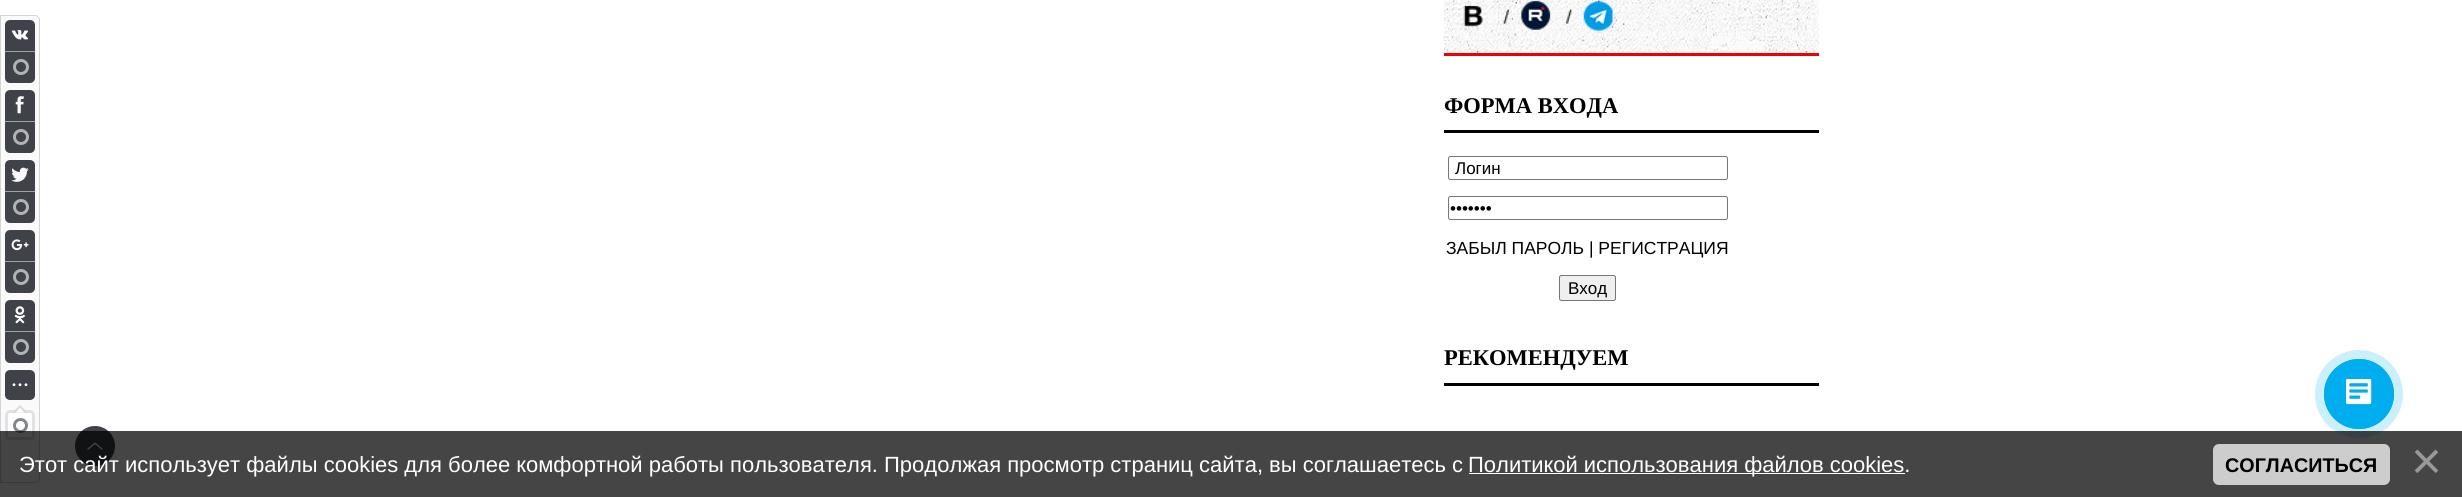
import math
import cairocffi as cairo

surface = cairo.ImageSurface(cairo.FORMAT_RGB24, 2462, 497)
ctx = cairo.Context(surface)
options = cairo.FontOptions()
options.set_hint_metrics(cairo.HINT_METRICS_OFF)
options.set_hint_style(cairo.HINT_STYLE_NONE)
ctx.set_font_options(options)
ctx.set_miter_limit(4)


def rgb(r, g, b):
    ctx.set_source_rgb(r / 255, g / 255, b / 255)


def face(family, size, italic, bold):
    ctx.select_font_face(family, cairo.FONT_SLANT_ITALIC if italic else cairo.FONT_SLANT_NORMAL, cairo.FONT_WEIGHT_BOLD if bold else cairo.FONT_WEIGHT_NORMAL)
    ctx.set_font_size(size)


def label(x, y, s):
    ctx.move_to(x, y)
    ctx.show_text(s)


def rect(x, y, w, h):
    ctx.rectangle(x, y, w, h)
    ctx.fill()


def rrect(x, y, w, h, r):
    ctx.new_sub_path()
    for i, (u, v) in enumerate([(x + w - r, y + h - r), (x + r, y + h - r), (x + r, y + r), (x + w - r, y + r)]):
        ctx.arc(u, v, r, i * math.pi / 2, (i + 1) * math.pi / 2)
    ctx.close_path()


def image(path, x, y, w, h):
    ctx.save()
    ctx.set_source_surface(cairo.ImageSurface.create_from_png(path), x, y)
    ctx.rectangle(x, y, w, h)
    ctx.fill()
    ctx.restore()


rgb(255, 255, 255)
ctx.paint()
rgb(250, 250, 250)
ctx.new_path()
ctx.move_to(0.5, 15.5)
ctx.line_to(35, 15.5)
ctx.curve_to(37.5, 15.5, 39.5, 17.5, 39.5, 20)
ctx.line_to(39.5, 478)
ctx.curve_to(39.5, 480.5, 37.5, 482.5, 35, 482.5)
ctx.line_to(0.5, 482.5)
ctx.close_path()
ctx.fill_preserve()
rgb(212, 212, 212)
ctx.set_line_width(1)
ctx.stroke()
rgb(63, 66, 72)
rrect(5, 20, 30, 63, 5)
ctx.fill()
image('image0.png', 11, 30, 18, 10)
rgb(159, 161, 164)
rect(5, 51, 30, 1)
ctx.arc(21, 67, 6.5, 0, 2 * math.pi)
rgb(178, 179, 182)
ctx.set_line_width(3)
ctx.stroke()
rgb(63, 66, 72)
rrect(5, 90, 30, 63, 5)
ctx.fill()
image('image1.png', 15, 96, 9, 18)
rgb(159, 161, 164)
rect(5, 121, 30, 1)
ctx.arc(21, 137, 6.5, 0, 2 * math.pi)
rgb(178, 179, 182)
ctx.stroke()
rgb(63, 66, 72)
rrect(5, 160, 30, 63, 5)
ctx.fill()
image('image2.png', 11, 167, 18, 15)
rgb(159, 161, 164)
rect(5, 191, 30, 1)
ctx.arc(21, 207, 6.5, 0, 2 * math.pi)
rgb(178, 179, 182)
ctx.stroke()
rgb(63, 66, 72)
rrect(5, 230, 30, 63, 5)
ctx.fill()
image('image3.png', 11, 239, 18, 12)
rgb(159, 161, 164)
rect(5, 261, 30, 1)
ctx.arc(21, 277, 6.5, 0, 2 * math.pi)
rgb(178, 179, 182)
ctx.stroke()
rgb(63, 66, 72)
rrect(5, 300, 30, 63, 5)
ctx.fill()
image('image4.png', 14, 306, 11, 18)
rgb(159, 161, 164)
rect(5, 331, 30, 1)
ctx.arc(21, 347, 6.5, 0, 2 * math.pi)
rgb(178, 179, 182)
ctx.stroke()
rgb(63, 66, 72)
rrect(5, 370, 30, 30, 5)
ctx.fill()
image('image5.png', 12, 383, 16, 4)
rgb(255, 255, 255)
rrect(6.5, 411.5, 27, 27, 3.5)
ctx.fill_preserve()
rgb(224, 226, 230)
ctx.stroke()
rgb(216, 220, 222)
ctx.new_path()
ctx.move_to(27.5, 412.5)
ctx.line_to(12.5, 412.5)
ctx.line_to(20, 405)
ctx.close_path()
ctx.fill()
rgb(255, 255, 255)
ctx.new_path()
ctx.move_to(24, 412.5)
ctx.line_to(16, 412.5)
ctx.line_to(20, 407.5)
ctx.close_path()
ctx.fill()
ctx.arc(20.5, 425.5, 6, 0, 2 * math.pi)
rgb(129, 133, 139)
ctx.stroke()
rgb(63, 66, 72)
ctx.arc(95, 446, 20, 0, 2 * math.pi)
ctx.fill()
image('image6.png', 87, 442, 16, 8)
image('image7.png', 1443, 0, 376, 55)
rgb(240, 0, 0)
rect(1444, 53, 375, 3)
image('image8.png', 1463, 5, 20, 22)
image('image9.png', 1503, 9, 7, 15)
image('image10.png', 1521, 0, 30, 30)
image('image11.png', 1566, 9, 7, 15)
image('image12.png', 1583, 0, 30, 33)
rgb(0, 0, 0)
rect(1444, 130, 375, 3)
face('Liberation Serif', 22.5, 0, 1)
label(1444, 113, 'ФОРМА ВХОДА')
rrect(1448.5, 156.5, 279, 23, 2)
rgb(118, 118, 118)
ctx.set_line_width(1)
ctx.stroke()
face('Liberation Sans', 17, 0, 0)
rgb(0, 0, 0)
label(1455, 174, 'Логин')
rrect(1448.5, 196.5, 279, 23, 2)
rgb(118, 118, 118)
ctx.stroke()
rgb(0, 0, 0)
label(1450, 214, '•••••••')
face('Liberation Sans', 17.5, 0, 0)
label(1446, 254, 'ЗАБЫЛ ПАРОЛЬ | РЕГИСТРАЦИЯ')
rgb(239, 239, 239)
rrect(1559.5, 275.5, 56, 25, 2)
ctx.fill_preserve()
rgb(118, 118, 118)
ctx.stroke()
face('Liberation Sans', 17, 0, 0)
rgb(0, 0, 0)
label(1568, 294, 'Вход')
rect(1444, 383, 375, 3)
face('Liberation Serif', 22.5, 0, 1)
label(1444, 365, 'РЕКОМЕНДУЕМ')
rgb(204, 239, 252)
ctx.new_path()
ctx.arc(2359, 394, 44, 0, 2 * math.pi)
ctx.fill()
ctx.arc(2359, 394, 34.5, 0, 2 * math.pi)
rgb(0, 174, 239)
ctx.stroke()
ctx.arc(2359, 394, 35, 0, 2 * math.pi)
ctx.fill()
image('image13.png', 2346, 379, 26, 26)
ctx.set_source_rgba(0, 0, 0, 0.73)
rect(0, 431, 2462, 66)
face('Liberation Sans', 22, 0, 0)
rgb(255, 255, 255)
label(19, 472, 'Этот сайт использует файлы cookies для более комфортной работы пользователя. Продолжая просмотр страниц сайта, вы соглашаетесь с')
rect(1469, 473, 436, 1)
label(1468, 472, 'Политикой использования файлов cookies.')
rgb(205, 205, 205)
rrect(2213, 444, 177, 41, 6)
ctx.fill()
face('Liberation Sans', 19.75, 0, 1)
rgb(0, 0, 0)
label(2225, 472, 'СОГЛАСИТЬСЯ')
face('Liberation Sans', 53, 0, 0)
rgb(153, 153, 153)
label(2411, 479, '×')
surface.write_to_png('render.png')
